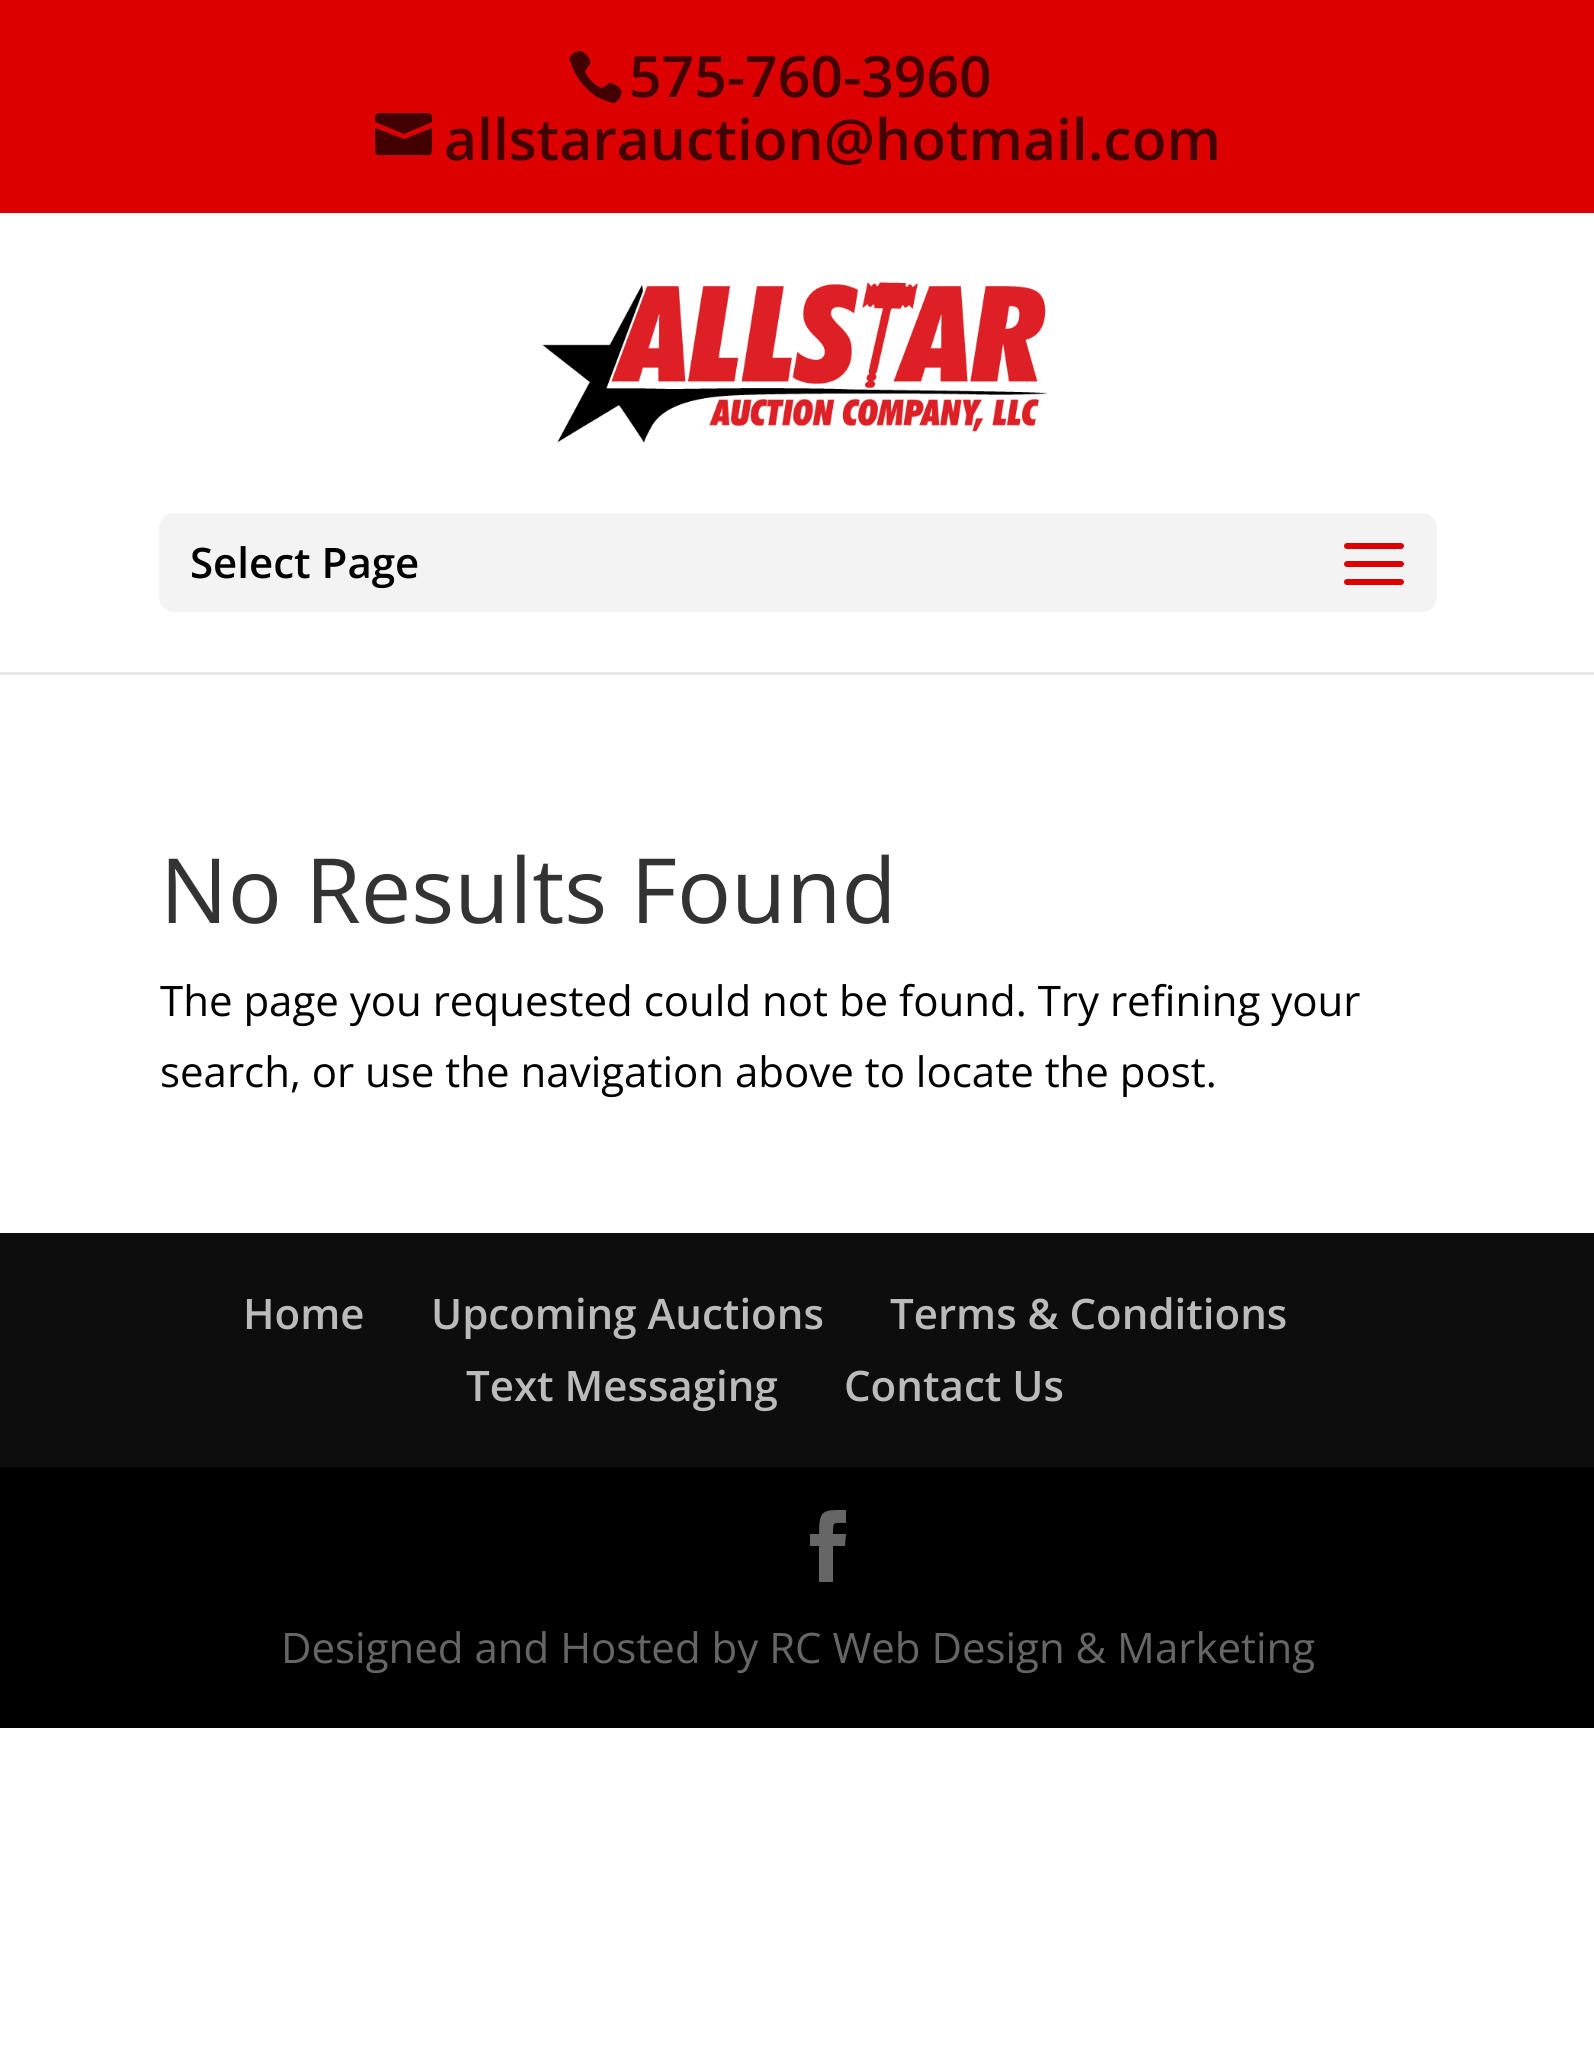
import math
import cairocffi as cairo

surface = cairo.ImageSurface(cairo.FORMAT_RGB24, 1594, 2058)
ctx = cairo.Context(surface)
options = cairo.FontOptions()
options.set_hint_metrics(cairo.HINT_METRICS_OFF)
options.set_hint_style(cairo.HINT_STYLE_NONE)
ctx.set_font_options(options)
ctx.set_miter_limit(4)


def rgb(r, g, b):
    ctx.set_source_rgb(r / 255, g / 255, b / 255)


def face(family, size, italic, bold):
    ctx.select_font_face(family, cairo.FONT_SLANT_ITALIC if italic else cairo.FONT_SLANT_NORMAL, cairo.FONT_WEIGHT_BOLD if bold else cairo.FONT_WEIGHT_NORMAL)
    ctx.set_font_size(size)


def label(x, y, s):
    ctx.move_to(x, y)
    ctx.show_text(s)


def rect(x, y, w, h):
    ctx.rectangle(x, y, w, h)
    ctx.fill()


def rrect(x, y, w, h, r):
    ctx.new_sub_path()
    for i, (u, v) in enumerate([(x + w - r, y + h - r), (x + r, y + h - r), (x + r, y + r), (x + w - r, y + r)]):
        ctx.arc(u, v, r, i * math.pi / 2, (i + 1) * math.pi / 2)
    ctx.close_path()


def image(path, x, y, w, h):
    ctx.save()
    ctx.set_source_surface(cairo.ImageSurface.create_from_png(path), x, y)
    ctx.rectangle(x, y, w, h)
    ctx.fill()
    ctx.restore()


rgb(255, 255, 255)
ctx.paint()
rgb(221, 0, 0)
rect(0, 0, 1594, 213)
image('image0.png', 569, 50, 53, 54)
face('Open Sans SemiBold', 57, 0, 0)
rgb(66, 0, 0)
label(629, 97, '575-760-3960')
label(444, 160, 'allstarauction@hotmail.com')
ctx.new_path()
ctx.move_to(428, 113)
ctx.line_to(379, 113)
ctx.curve_to(374, 113, 375, 119, 375, 122)
ctx.line_to(404, 134)
ctx.line_to(432, 122)
ctx.curve_to(432, 119, 433, 113, 428, 113)
ctx.close_path()
ctx.move_to(375, 128)
ctx.line_to(375, 148)
ctx.curve_to(375, 157, 377, 155, 387, 155)
ctx.line_to(420, 155)
ctx.curve_to(430, 155, 432, 157, 432, 148)
ctx.line_to(432, 128)
ctx.line_to(404, 139)
ctx.close_path()
ctx.fill()
rgb(230, 230, 230)
rect(0, 672, 1594, 3)
image('image1.png', 542, 282, 505, 161)
rgb(243, 243, 243)
rrect(159, 513, 1278, 99, 15)
ctx.fill()
face('Open Sans SemiBold', 42, 0, 0)
rgb(0, 0, 0)
label(190, 578, 'Select Page')
image('image2.png', 1344, 543, 60, 42)
face('Open Sans', 90, 0, 0)
rgb(51, 51, 51)
label(160, 923, 'No Results Found')
face('Open Sans', 42, 0, 0)
rgb(0, 0, 0)
label(160, 1016, 'The page you requested could not be found. Try refining your')
label(160, 1087, 'search, or use the navigation above to locate the post.')
rect(0, 1467, 1594, 261)
rgb(13, 13, 13)
rect(0, 1233, 1594, 234)
face('Open Sans SemiBold', 42, 0, 0)
rgb(187, 187, 187)
label(243, 1329, 'Home')
label(431, 1329, 'Upcoming Auctions')
label(890, 1329, 'Terms & Conditions')
label(466, 1401, 'Text Messaging')
label(844, 1401, 'Contact Us')
rgb(102, 102, 102)
ctx.new_path()
ctx.move_to(819, 1582)
ctx.line_to(833, 1582)
ctx.line_to(833, 1546)
ctx.line_to(845, 1546)
ctx.line_to(846, 1534)
ctx.line_to(833, 1534)
ctx.curve_to(833, 1521, 833, 1523, 846, 1523)
ctx.line_to(846, 1510)
ctx.curve_to(823, 1510, 819, 1509, 819, 1534)
ctx.line_to(810, 1534)
ctx.line_to(810, 1546)
ctx.line_to(819, 1546)
ctx.close_path()
ctx.fill()
face('Open Sans', 42, 0, 0)
label(281, 1663, 'Designed and Hosted by RC Web Design & Marketing')
surface.write_to_png('render.png')
